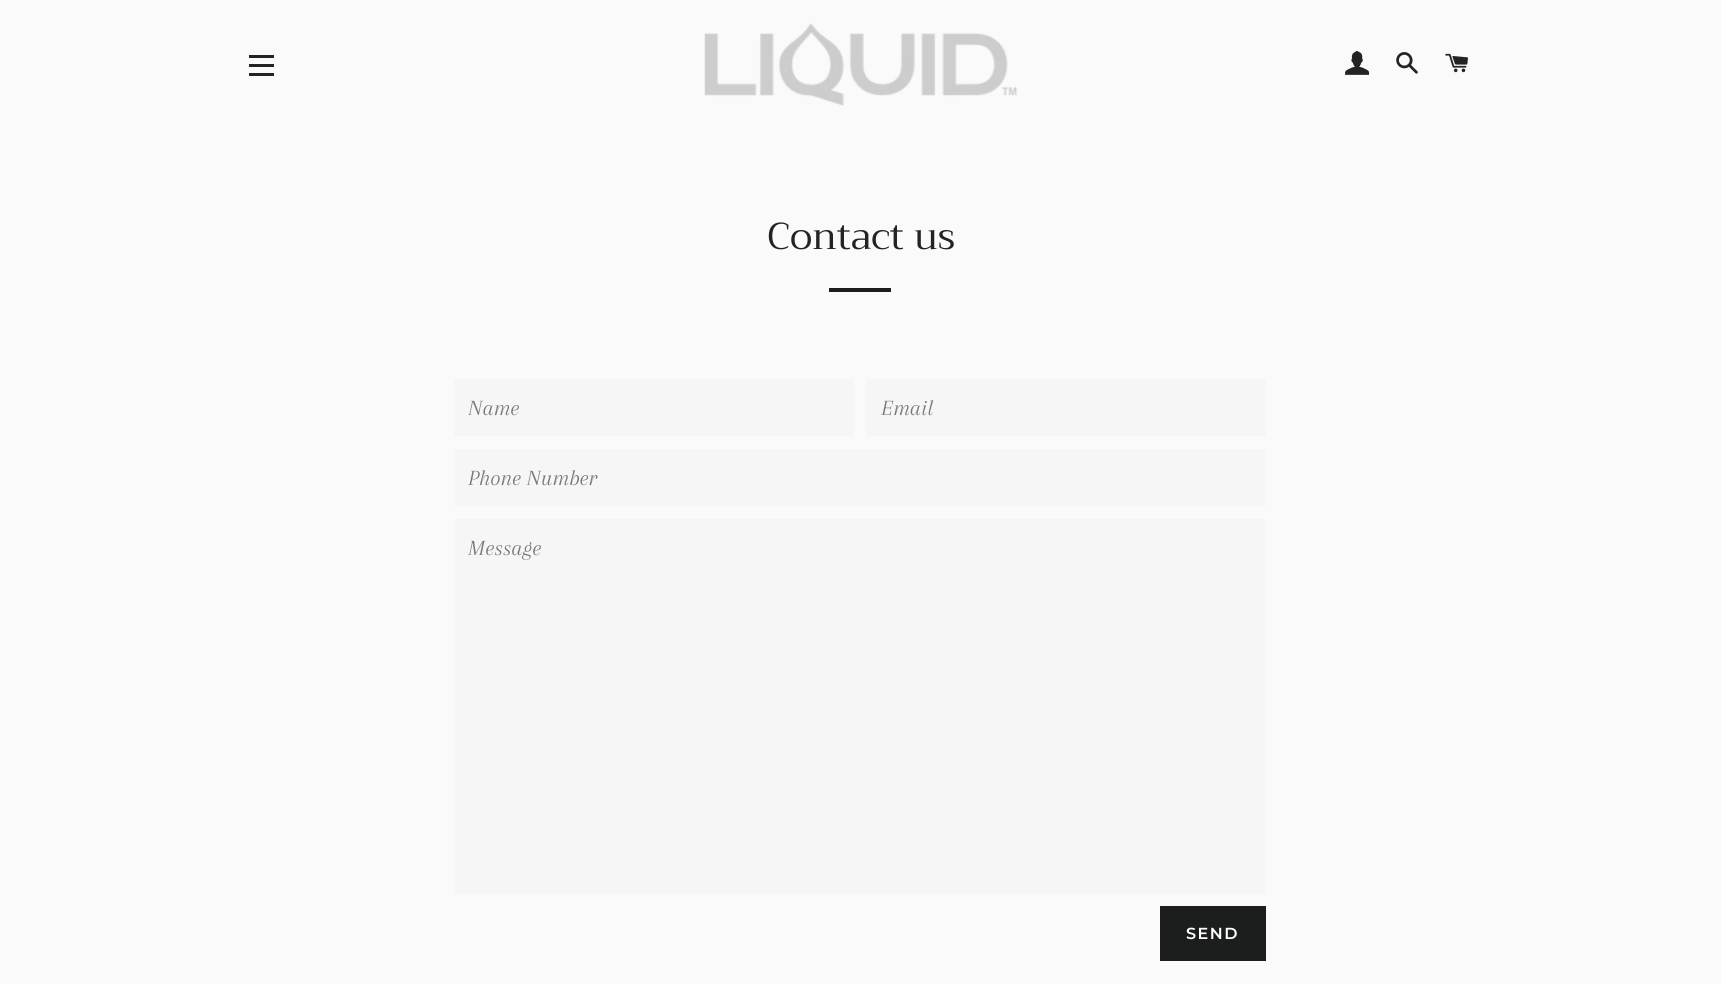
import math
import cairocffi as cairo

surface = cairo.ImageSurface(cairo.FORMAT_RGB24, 1721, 984)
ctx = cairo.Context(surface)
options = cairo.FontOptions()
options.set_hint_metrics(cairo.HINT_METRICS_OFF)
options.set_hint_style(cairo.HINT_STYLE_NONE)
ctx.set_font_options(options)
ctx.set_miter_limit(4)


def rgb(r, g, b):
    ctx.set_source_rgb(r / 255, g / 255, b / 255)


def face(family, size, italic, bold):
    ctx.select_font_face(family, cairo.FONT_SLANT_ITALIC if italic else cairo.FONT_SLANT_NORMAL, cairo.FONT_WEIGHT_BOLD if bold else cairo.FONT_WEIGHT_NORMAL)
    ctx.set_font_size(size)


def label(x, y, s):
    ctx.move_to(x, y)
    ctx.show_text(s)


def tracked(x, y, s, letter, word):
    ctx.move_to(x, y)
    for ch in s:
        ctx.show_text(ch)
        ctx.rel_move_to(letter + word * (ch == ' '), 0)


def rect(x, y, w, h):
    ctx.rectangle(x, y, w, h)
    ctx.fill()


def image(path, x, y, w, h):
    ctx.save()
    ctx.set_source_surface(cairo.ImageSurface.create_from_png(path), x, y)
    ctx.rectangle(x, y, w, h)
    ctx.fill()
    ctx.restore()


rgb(250, 250, 250)
ctx.paint()
rgb(34, 35, 35)
rect(249, 55, 25, 3)
rect(249, 64, 25, 3)
rect(249, 73, 25, 3)
image('image0.png', 704, 23, 314, 83)
image('image1.png', 1345, 51, 25, 24)
image('image2.png', 1396, 52, 22, 22)
image('image3.png', 1445, 53, 23, 20)
face('Trirong', 37.5, 0, 0)
label(767, 249, 'Contact us')
rgb(28, 29, 29)
rect(829, 288, 62, 4)
rgb(246, 246, 246)
rect(454, 379, 400, 57)
face('Arapey', 22.5, 1, 0)
rgb(119, 119, 119)
label(468, 415, 'Name')
rgb(246, 246, 246)
rect(866, 379, 400, 57)
rgb(119, 119, 119)
label(881, 415, 'Email')
rgb(246, 246, 246)
rect(454, 449, 812, 57)
rgb(119, 119, 119)
label(468, 485, 'Phone Number')
rgb(246, 246, 246)
rect(454, 519, 812, 375)
rgb(119, 119, 119)
label(468, 555, 'Message')
rgb(28, 29, 29)
rect(1160, 906, 106, 55)
face('Montserrat SemiBold', 16, 0, 0)
rgb(255, 255, 255)
tracked(1186, 939, 'SEND', 1.5, 0)
surface.write_to_png('render.png')
